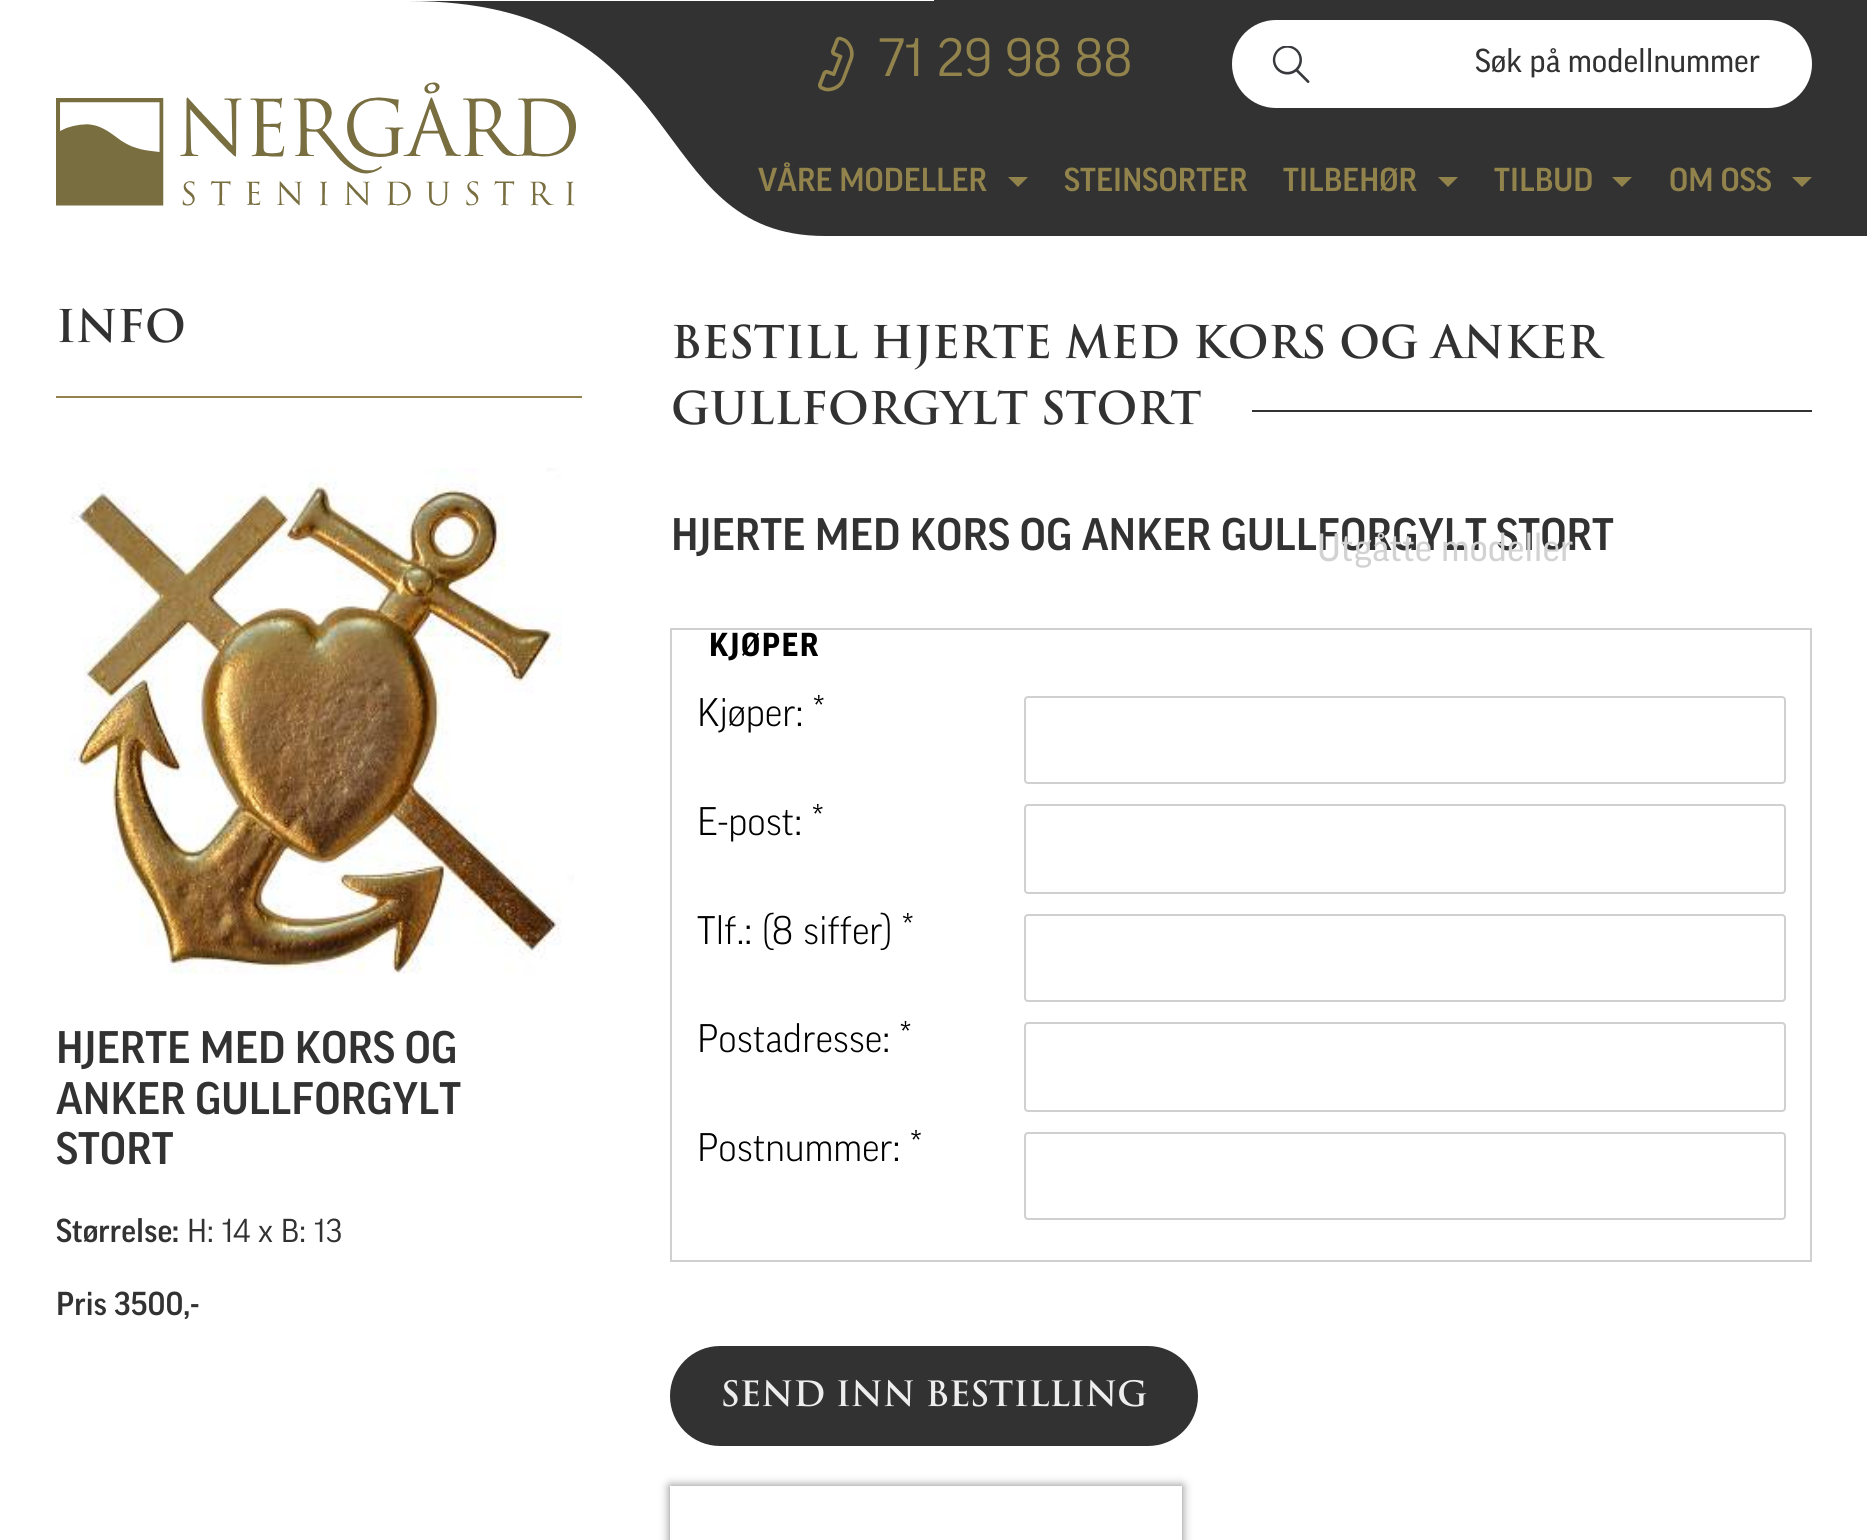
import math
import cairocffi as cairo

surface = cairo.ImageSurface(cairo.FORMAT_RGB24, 1867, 1540)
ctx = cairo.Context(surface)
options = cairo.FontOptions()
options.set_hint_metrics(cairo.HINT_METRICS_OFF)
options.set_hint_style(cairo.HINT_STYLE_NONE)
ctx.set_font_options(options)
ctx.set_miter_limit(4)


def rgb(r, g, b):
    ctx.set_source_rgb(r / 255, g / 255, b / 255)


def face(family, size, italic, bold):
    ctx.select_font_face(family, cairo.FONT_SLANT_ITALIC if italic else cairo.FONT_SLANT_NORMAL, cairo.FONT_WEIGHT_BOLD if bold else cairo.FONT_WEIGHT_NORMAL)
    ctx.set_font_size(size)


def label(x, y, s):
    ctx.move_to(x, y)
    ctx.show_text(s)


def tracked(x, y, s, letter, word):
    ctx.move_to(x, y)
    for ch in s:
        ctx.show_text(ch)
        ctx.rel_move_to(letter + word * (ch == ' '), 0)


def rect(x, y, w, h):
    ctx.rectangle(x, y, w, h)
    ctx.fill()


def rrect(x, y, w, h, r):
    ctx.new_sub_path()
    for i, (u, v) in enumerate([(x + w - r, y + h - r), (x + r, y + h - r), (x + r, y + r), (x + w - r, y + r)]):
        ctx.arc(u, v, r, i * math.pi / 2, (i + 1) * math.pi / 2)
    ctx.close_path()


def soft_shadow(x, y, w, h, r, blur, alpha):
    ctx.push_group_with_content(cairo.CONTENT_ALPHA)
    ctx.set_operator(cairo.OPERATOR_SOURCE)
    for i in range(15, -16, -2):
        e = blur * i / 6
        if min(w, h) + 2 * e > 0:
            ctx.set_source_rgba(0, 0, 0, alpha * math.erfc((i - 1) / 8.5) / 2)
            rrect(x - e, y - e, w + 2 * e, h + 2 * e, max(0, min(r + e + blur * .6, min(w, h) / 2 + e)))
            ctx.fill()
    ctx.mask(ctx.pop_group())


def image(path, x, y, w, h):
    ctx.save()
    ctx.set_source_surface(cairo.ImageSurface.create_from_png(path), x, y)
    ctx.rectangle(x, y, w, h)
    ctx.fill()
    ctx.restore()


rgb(255, 255, 255)
ctx.paint()
rgb(50, 50, 50)
rect(934, 0, 933, 236)
ctx.save()
ctx.rectangle(156, 0, 1656, 236)
ctx.clip()
ctx.new_path()
ctx.move_to(408, 1)
ctx.line_to(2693, 1)
ctx.line_to(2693, 236)
ctx.line_to(825, 236)
ctx.curve_to(641, 236, 698, 1, 408, 1)
ctx.close_path()
ctx.fill()
ctx.restore()
image('image0.png', 56, 82, 520, 124)
image('image1.png', 818, 36, 36, 56)
face('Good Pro', 52, 0, 0)
rgb(145, 131, 75)
label(879, 76, '71 29 98 88')
rgb(255, 255, 255)
rrect(1233, 21, 578, 86, 43)
ctx.fill_preserve()
ctx.stroke()
image('image2.png', 1272, 46, 38, 37)
face('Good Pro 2 Medium', 32, 0, 0)
rgb(50, 50, 50)
label(1475, 72, 'Søk på modellnummer')
face('Good Pro Medium', 32, 0, 0)
rgb(145, 131, 75)
label(758, 191, 'VÅRE MODELLER')
ctx.new_path()
ctx.move_to(1008, 177)
ctx.line_to(1028, 177)
ctx.line_to(1018, 187)
ctx.close_path()
ctx.fill()
label(1064, 191, 'STEINSORTER')
label(1283, 191, 'TILBEHØR')
ctx.new_path()
ctx.move_to(1438, 177)
ctx.line_to(1458, 177)
ctx.line_to(1448, 187)
ctx.close_path()
ctx.fill()
label(1494, 191, 'TILBUD')
ctx.new_path()
ctx.move_to(1612, 177)
ctx.line_to(1632, 177)
ctx.line_to(1622, 187)
ctx.close_path()
ctx.fill()
face('Good Pro Medium', 44, 0, 0)
rgb(50, 50, 50)
label(671, 550, 'HJERTE MED KORS OG ANKER GULLFORGYLT STORT')
face('Good Pro 2 Medium', 38, 0, 0)
rgb(210, 210, 210)
label(1317, 561, 'Utgåtte modeller')
face('Good Pro Medium', 32, 0, 0)
rgb(145, 131, 75)
label(1669, 191, 'OM OSS')
ctx.new_path()
ctx.move_to(1792, 177)
ctx.line_to(1812, 177)
ctx.line_to(1802, 187)
ctx.close_path()
ctx.fill()
rect(56, 396, 526, 2)
face('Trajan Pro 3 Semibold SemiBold', 44, 0, 0)
rgb(50, 50, 50)
label(56, 342, 'INFO')
image('image3.png', 64, 468, 510, 507)
face('Good Pro Medium', 44, 0, 0)
label(56, 1063, 'HJERTE MED KORS OG')
label(56, 1114, 'ANKER GULLFORGYLT')
label(56, 1164, 'STORT')
face('Good Pro Medium', 32, 0, 0)
label(56, 1242, 'Størrelse:')
face('Good Pro', 32, 0, 0)
label(187, 1242, 'H: 14 x B: 13')
face('Good Pro Medium', 32, 0, 0)
label(56, 1315, 'Pris 3500,-')
face('Trajan Pro 3 Semibold SemiBold', 44, 0, 0)
label(671, 358, 'BESTILL HJERTE MED KORS OG ANKER')
label(671, 424, 'GULLFORGYLT STORT')
rect(1252, 410, 560, 2)
ctx.rectangle(671, 629, 1140, 632)
rgb(208, 208, 208)
ctx.stroke()
face('Good Pro', 32, 0, 1)
rgb(0, 0, 0)
tracked(709, 656, 'KJØPER', 1.5, 0)
face('Good Pro Light', 38.5, 0, 0)
label(697, 726, 'Kjøper: *')
rrect(1025, 697, 760, 86, 3)
rgb(208, 208, 208)
ctx.stroke()
rgb(0, 0, 0)
label(697, 835, 'E-post: *')
rrect(1025, 805, 760, 88, 3)
rgb(208, 208, 208)
ctx.stroke()
rgb(0, 0, 0)
label(697, 944, 'Tlf.: (8 siffer) *')
rrect(1025, 915, 760, 86, 3)
rgb(208, 208, 208)
ctx.stroke()
rgb(0, 0, 0)
label(697, 1052, 'Postadresse: *')
rrect(1025, 1023, 760, 88, 3)
rgb(208, 208, 208)
ctx.stroke()
rgb(0, 0, 0)
label(697, 1161, 'Postnummer: *')
rrect(1025, 1133, 760, 86, 3)
rgb(208, 208, 208)
ctx.stroke()
rgb(50, 50, 50)
rrect(670, 1346, 528, 100, 50)
ctx.fill()
face('Trajan Pro 3 Semibold SemiBold', 34, 0, 0)
rgb(237, 237, 237)
label(721, 1406, 'SEND INN BESTILLING')
ctx.save()
ctx.set_fill_rule(cairo.FILL_RULE_EVEN_ODD)
ctx.new_path()
ctx.move_to(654, 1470)
ctx.line_to(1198, 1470)
ctx.line_to(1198, 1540)
ctx.line_to(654, 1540)
ctx.close_path()
ctx.move_to(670, 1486)
ctx.line_to(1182, 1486)
ctx.line_to(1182, 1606)
ctx.line_to(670, 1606)
ctx.close_path()
ctx.clip()
rgb(128, 128, 128)
soft_shadow(670, 1486, 512, 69, 0, 5, 1)
ctx.restore()
surface.write_to_png('render.png')
